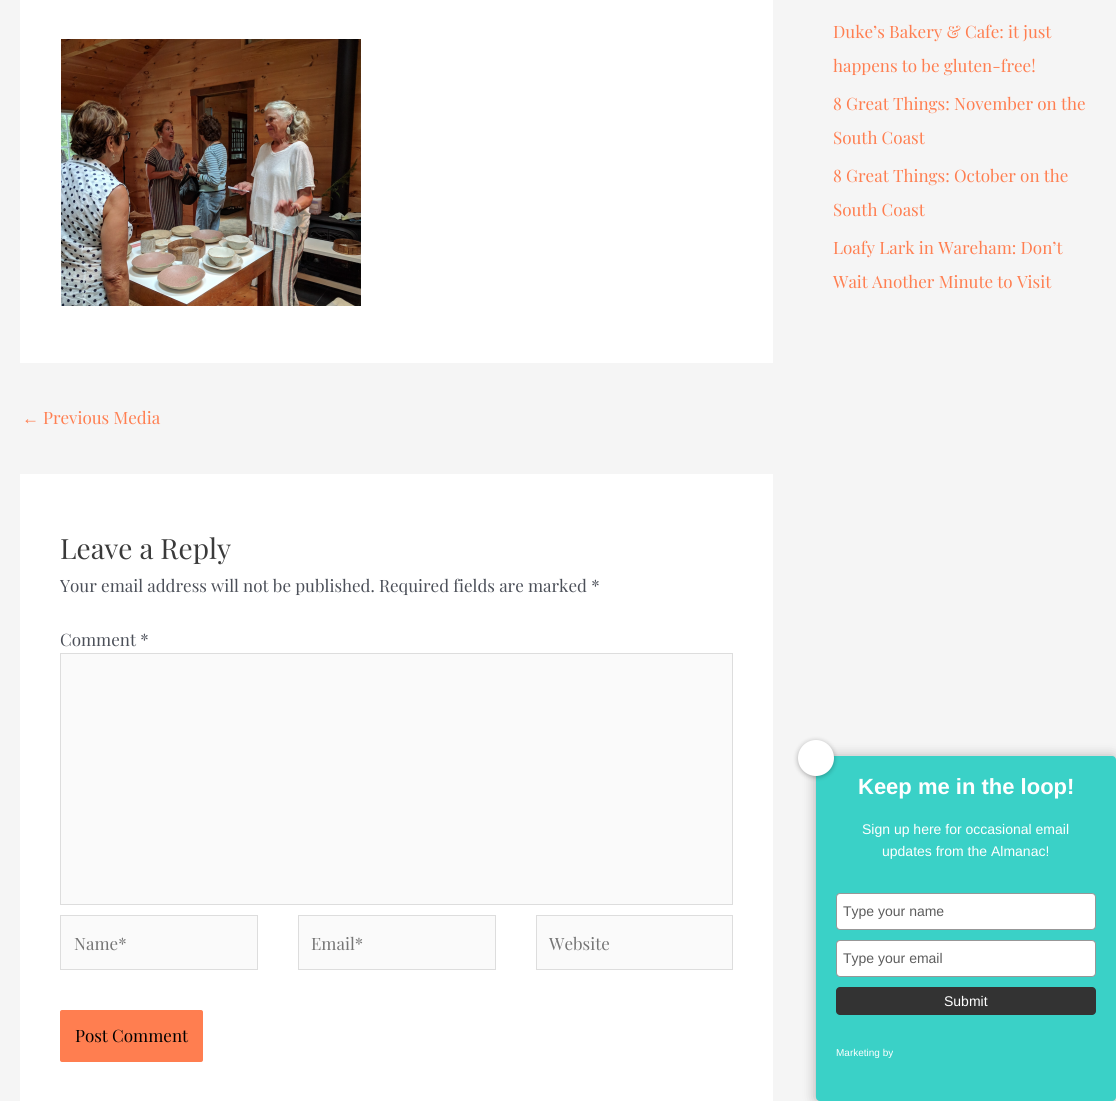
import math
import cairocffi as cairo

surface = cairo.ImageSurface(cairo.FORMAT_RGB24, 1116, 1101)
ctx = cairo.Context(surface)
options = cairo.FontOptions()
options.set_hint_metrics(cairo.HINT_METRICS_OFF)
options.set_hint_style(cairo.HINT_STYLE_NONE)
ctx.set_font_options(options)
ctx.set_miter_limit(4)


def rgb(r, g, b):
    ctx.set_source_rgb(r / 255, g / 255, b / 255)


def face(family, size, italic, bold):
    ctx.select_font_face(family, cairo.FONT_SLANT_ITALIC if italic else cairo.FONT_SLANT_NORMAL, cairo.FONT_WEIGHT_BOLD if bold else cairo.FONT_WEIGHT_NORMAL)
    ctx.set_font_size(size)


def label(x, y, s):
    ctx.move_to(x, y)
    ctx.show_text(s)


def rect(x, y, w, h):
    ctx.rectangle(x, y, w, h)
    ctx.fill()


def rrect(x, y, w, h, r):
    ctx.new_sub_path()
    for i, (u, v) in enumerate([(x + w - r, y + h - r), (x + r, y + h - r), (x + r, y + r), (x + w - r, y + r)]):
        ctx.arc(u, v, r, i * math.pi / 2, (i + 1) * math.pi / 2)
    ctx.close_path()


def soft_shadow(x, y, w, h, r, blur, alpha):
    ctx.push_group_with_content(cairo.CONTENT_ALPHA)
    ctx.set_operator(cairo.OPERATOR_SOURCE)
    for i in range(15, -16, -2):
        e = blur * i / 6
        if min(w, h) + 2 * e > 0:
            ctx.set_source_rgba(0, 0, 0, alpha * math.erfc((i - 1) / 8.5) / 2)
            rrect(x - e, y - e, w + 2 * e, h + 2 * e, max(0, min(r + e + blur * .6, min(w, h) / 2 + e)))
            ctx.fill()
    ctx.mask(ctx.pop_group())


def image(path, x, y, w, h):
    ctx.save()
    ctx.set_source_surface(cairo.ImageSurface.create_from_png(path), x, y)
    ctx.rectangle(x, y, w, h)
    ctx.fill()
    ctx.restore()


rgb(245, 245, 245)
ctx.paint()
face('Playfair Display', 17, 0, 0)
rgb(255, 126, 80)
label(833, 38, 'Duke’s Bakery & Cafe: it just')
label(833, 72, 'happens to be gluten-free!')
label(833, 110, '8 Great Things: November on the')
label(833, 144, 'South Coast')
label(833, 182, '8 Great Things: October on the')
label(833, 216, 'South Coast')
label(833, 254, 'Loafy Lark in Wareham: Don’t')
label(833, 288, 'Wait Another Minute to Visit')
rgb(255, 255, 255)
rect(20, 0, 753, 363)
image('image0.png', 61, 39, 300, 267)
face('Liberation Serif', 17, 0, 0)
rgb(255, 126, 80)
label(22, 424, '←')
face('Playfair Display', 17, 0, 0)
label(43, 424, 'Previous Media')
rgb(255, 255, 255)
rect(20, 474, 753, 627)
face('Playfair Display', 28, 0, 0)
rgb(58, 58, 58)
label(60, 559, 'Leave a Reply')
face('Playfair Display', 17, 0, 0)
rgb(75, 79, 88)
label(60, 592, 'Your email address will not be published. Required fields are marked *')
label(60, 646, 'Comment *')
rgb(250, 250, 250)
ctx.rectangle(60.5, 653.5, 672, 251)
ctx.fill_preserve()
rgb(221, 221, 221)
ctx.set_line_width(1)
ctx.stroke()
rgb(250, 250, 250)
ctx.rectangle(60.5, 915.5, 197, 54)
ctx.fill_preserve()
rgb(221, 221, 221)
ctx.stroke()
rgb(117, 117, 117)
label(74, 950, 'Name*')
rgb(250, 250, 250)
ctx.rectangle(298.5, 915.5, 197, 54)
ctx.fill_preserve()
rgb(221, 221, 221)
ctx.stroke()
rgb(117, 117, 117)
label(311, 950, 'Email*')
rgb(250, 250, 250)
ctx.rectangle(536.5, 915.5, 196, 54)
ctx.fill_preserve()
rgb(221, 221, 221)
ctx.stroke()
rgb(117, 117, 117)
label(549, 950, 'Website')
rgb(255, 126, 80)
rrect(60, 1010, 143, 52, 2)
ctx.fill()
rgb(0, 0, 0)
label(75, 1042, 'Post Comment')
rgb(0, 0, 0)
soft_shadow(816, 757, 300, 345, 4, 6.5, 0.3)
rgb(58, 209, 199)
rrect(816, 756, 300, 345, 4)
ctx.fill()
rgb(0, 0, 0)
soft_shadow(798, 741, 36, 36, 18, 2.5, 0.3)
rgb(255, 255, 255)
ctx.arc(816, 758, 18, 0, 2 * math.pi)
ctx.fill()
face('Liberation Sans', 22, 0, 1)
label(858, 794, 'Keep me in the loop!')
face('Liberation Sans', 14, 0, 0)
label(862, 834, 'Sign up here for occasional email')
label(882, 856, 'updates from the Almanac!')
rrect(836.5, 893.5, 259, 36, 3.5)
ctx.fill_preserve()
rgb(151, 151, 151)
ctx.stroke()
rgb(93, 93, 93)
label(843, 916, 'Type your name')
rgb(255, 255, 255)
rrect(836.5, 940.5, 259, 36, 3.5)
ctx.fill_preserve()
rgb(151, 151, 151)
ctx.stroke()
rgb(93, 93, 93)
label(843, 963, 'Type your email')
rgb(51, 51, 51)
rrect(836, 987, 260, 28, 4)
ctx.fill()
rgb(255, 255, 255)
label(944, 1006, 'Submit')
face('Liberation Sans', 10, 0, 0)
label(836, 1056, 'Marketing by')
surface.write_to_png('render.png')
